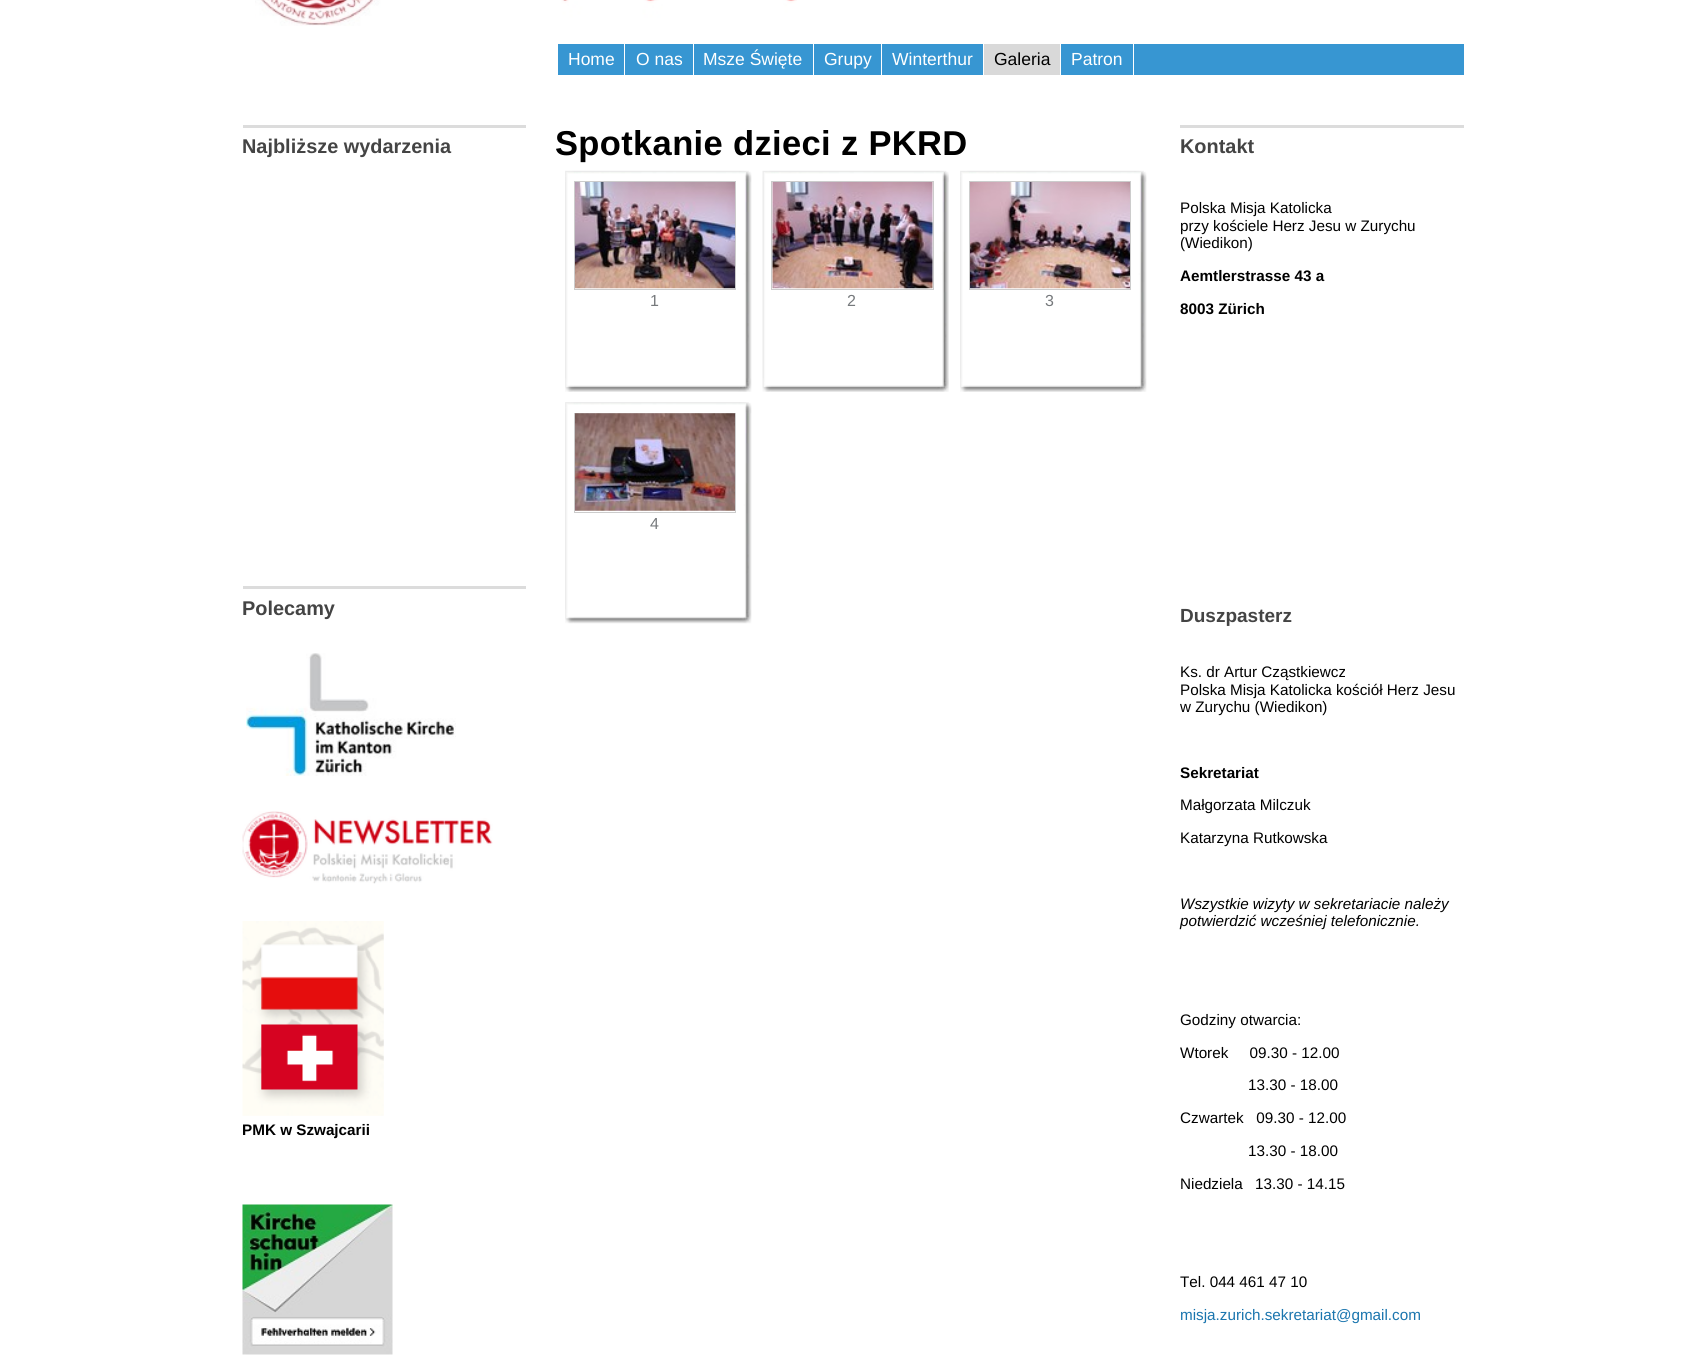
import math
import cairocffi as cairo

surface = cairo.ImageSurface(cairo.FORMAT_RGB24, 1706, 1356)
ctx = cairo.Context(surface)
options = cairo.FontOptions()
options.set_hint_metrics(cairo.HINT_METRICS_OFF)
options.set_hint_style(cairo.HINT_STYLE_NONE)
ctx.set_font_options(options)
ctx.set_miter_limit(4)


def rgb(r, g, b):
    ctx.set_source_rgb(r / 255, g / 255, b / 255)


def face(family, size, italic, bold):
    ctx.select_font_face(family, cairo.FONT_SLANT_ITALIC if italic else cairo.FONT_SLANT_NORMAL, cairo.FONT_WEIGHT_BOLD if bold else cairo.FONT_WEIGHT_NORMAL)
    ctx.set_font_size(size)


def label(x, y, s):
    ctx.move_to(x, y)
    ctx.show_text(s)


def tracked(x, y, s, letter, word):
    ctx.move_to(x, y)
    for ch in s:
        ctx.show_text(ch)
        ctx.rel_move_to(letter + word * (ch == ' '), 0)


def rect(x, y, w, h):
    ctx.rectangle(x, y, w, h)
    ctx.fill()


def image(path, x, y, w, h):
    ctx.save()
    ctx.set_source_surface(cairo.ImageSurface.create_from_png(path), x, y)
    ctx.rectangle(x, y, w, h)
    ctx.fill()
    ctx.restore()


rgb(255, 255, 255)
ctx.paint()
image('image0.png', 255, 0, 542, 26)
rgb(55, 150, 210)
rect(558, 44, 906, 31)
rgb(255, 255, 255)
rect(624, 44, 1, 31)
face('Liberation Sans', 17.5, 0, 0)
label(568, 65, 'Home')
rect(693, 44, 1, 31)
label(636, 65, 'O nas')
rect(813, 44, 1, 31)
label(703, 65, 'Msze Święte')
rect(881, 44, 1, 31)
label(824, 65, 'Grupy')
rect(983, 44, 1, 31)
label(892, 65, 'Winterthur')
rgb(217, 217, 217)
rect(984, 44, 76, 31)
rgb(255, 255, 255)
rect(1060, 44, 1, 31)
rgb(0, 0, 0)
label(994, 65, 'Galeria')
rgb(255, 255, 255)
rect(1133, 44, 1, 31)
label(1071, 65, 'Patron')
rgb(220, 220, 220)
rect(243, 125, 283, 3)
face('Liberation Sans', 19.9, 0, 1)
rgb(68, 68, 68)
label(242, 153, 'Najbliższe wydarzenia')
rgb(220, 220, 220)
rect(243, 586, 283, 3)
rgb(68, 68, 68)
label(242, 615, 'Polecamy')
image('image1.png', 246, 653, 210, 123)
image('image2.png', 242, 811, 251, 73)
image('image3.png', 242, 921, 142, 195)
face('Liberation Sans', 15.25, 0, 1)
rgb(0, 0, 0)
label(242, 1135, 'PMK w Szwajcarii')
image('image4.png', 242, 1204, 151, 151)
face('Liberation Sans', 34.5, 0, 1)
tracked(555, 155, 'Spotkanie dzieci z PKRD', 0.35, 0)
image('image5.png', 565, 170, 187, 222)
ctx.rectangle(574.5, 181.5, 161, 108)
rgb(204, 204, 204)
ctx.set_line_width(1)
ctx.stroke()
image('image6.png', 575, 182, 160, 107)
face('Liberation Sans', 16, 0, 0)
rgb(118, 121, 124)
label(650, 306, '1')
image('image7.png', 762, 170, 187, 222)
ctx.rectangle(771.5, 181.5, 162, 108)
rgb(204, 204, 204)
ctx.stroke()
image('image8.png', 772, 182, 161, 107)
rgb(118, 121, 124)
label(847, 306, '2')
image('image5.png', 960, 170, 187, 222)
ctx.rectangle(969.5, 181.5, 161, 108)
rgb(204, 204, 204)
ctx.stroke()
image('image9.png', 970, 182, 160, 107)
rgb(118, 121, 124)
label(1045, 306, '3')
image('image10.png', 565, 402, 187, 222)
ctx.rectangle(574.5, 413.5, 161, 99)
rgb(204, 204, 204)
ctx.stroke()
image('image11.png', 575, 413, 160, 98)
rgb(118, 121, 124)
label(650, 529, '4')
rgb(220, 220, 220)
rect(1180, 125, 284, 3)
face('Liberation Sans', 19.9, 0, 1)
rgb(68, 68, 68)
label(1180, 153, 'Kontakt')
face('Liberation Sans', 15.25, 0, 0)
rgb(0, 0, 0)
label(1180, 213, 'Polska Misja Katolicka')
label(1180, 231, 'przy kościele Herz Jesu w Zurychu')
label(1180, 248, '(Wiedikon)')
face('Liberation Sans', 15.25, 0, 1)
label(1180, 281, 'Aemtlerstrasse 43 a')
label(1180, 314, '8003 Zürich')
face('Liberation Sans', 19, 0, 1)
rgb(68, 68, 68)
label(1180, 622, 'Duszpasterz')
face('Liberation Sans', 15.25, 0, 0)
rgb(0, 0, 0)
label(1180, 677, 'Ks. dr Artur Cząstkiewcz')
label(1180, 695, 'Polska Misja Katolicka kościół Herz Jesu')
label(1180, 712, 'w Zurychu (Wiedikon)')
face('Liberation Sans', 15.25, 0, 1)
label(1180, 778, 'Sekretariat')
face('Liberation Sans', 15.25, 0, 0)
label(1180, 810, 'Małgorzata Milczuk')
label(1180, 843, 'Katarzyna Rutkowska')
face('Liberation Sans', 15.25, 1, 0)
label(1180, 909, 'Wszystkie wizyty w sekretariacie należy')
label(1180, 926, 'potwierdzić wcześniej telefonicznie.')
face('Liberation Sans', 15.25, 0, 0)
label(1180, 1025, 'Godziny otwarcia:')
label(1180, 1058, 'Wtorek     09.30 - 12.00')
label(1248, 1090, '13.30 - 18.00')
label(1180, 1123, 'Czwartek   09.30 - 12.00')
label(1248, 1156, '13.30 - 18.00')
label(1180, 1189, 'Niedziela')
label(1255, 1189, '13.30 - 14.15')
label(1180, 1287, 'Tel. 044 461 47 10')
rgb(26, 117, 174)
label(1180, 1320, 'misja.zurich.sekretariat@gmail.com')
surface.write_to_png('render.png')
